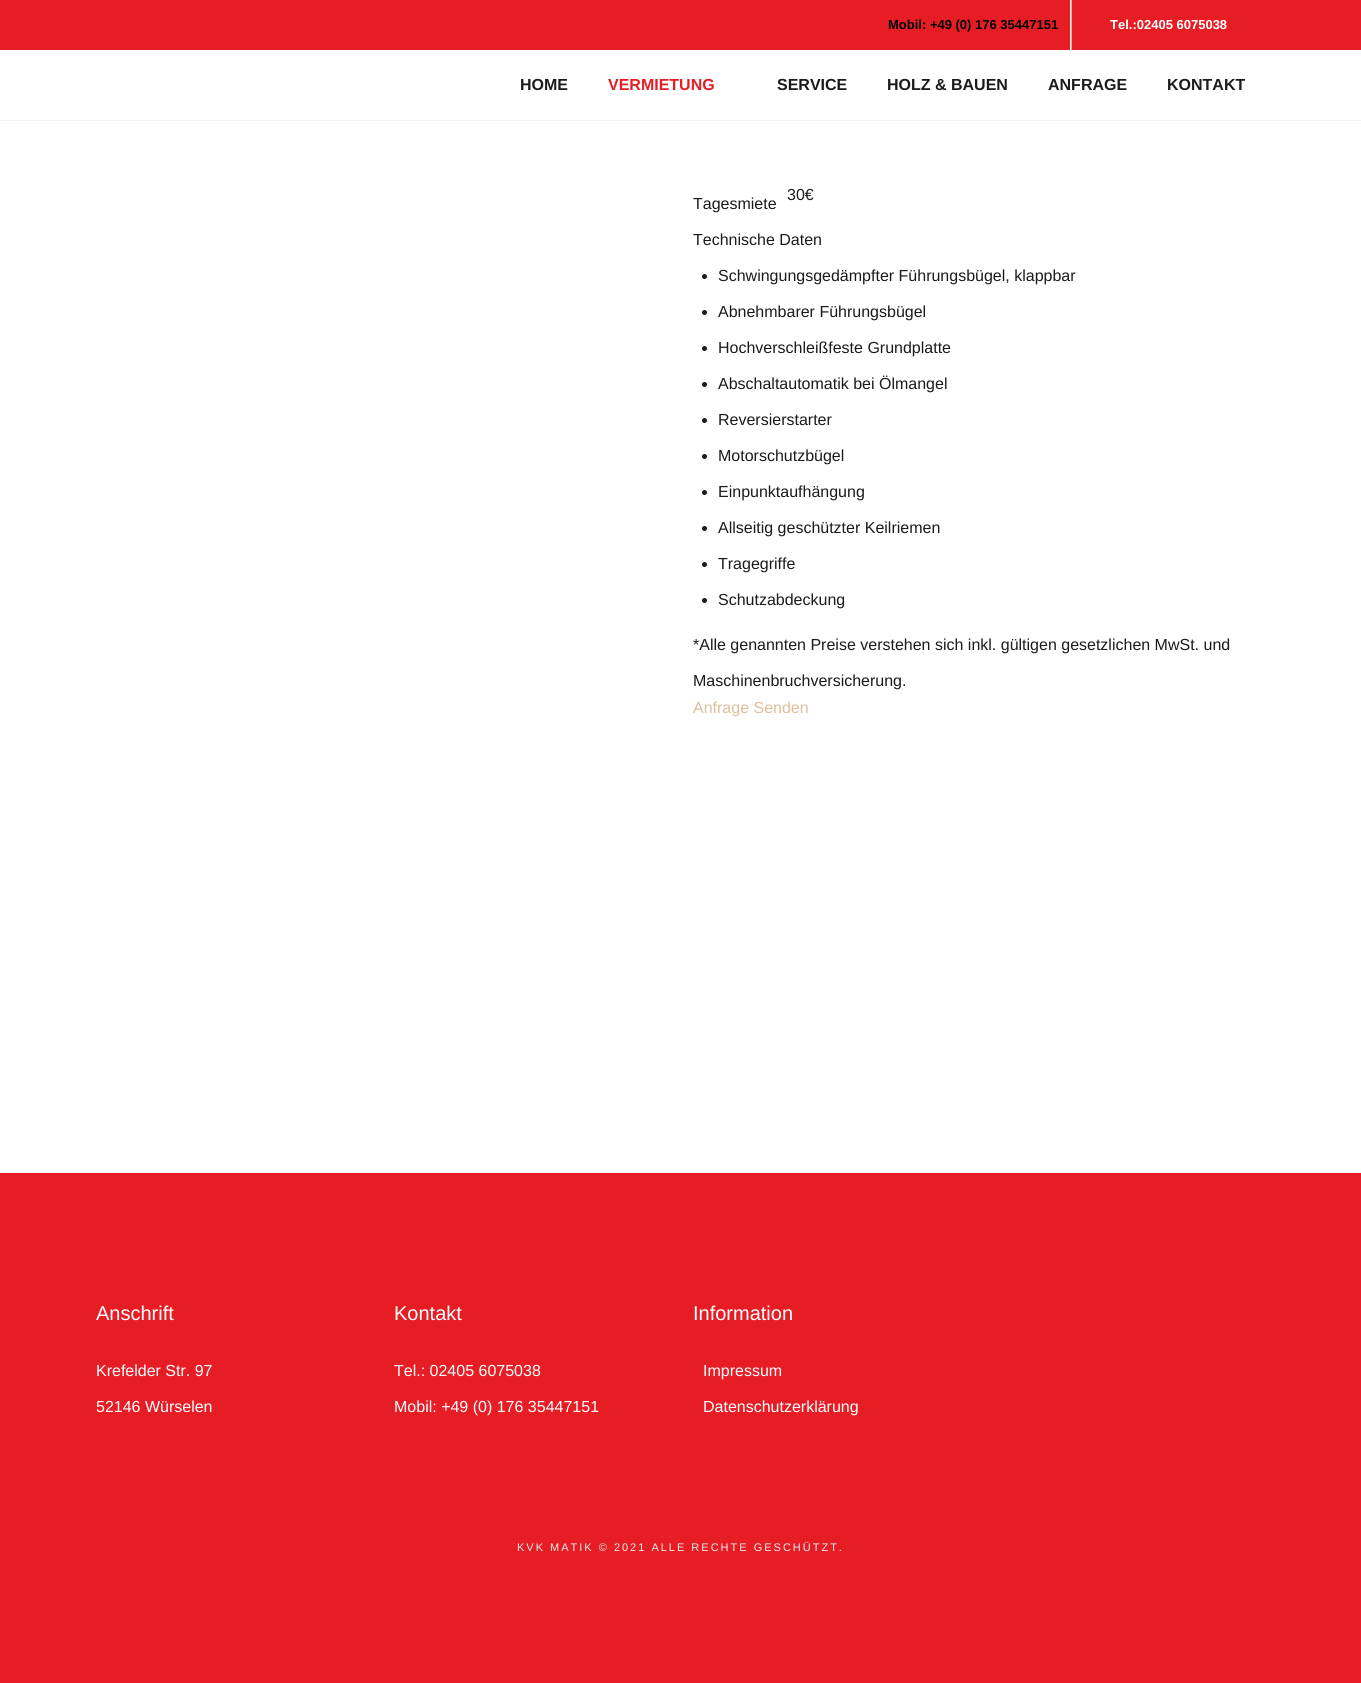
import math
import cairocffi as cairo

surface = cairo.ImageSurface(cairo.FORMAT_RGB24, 1361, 1683)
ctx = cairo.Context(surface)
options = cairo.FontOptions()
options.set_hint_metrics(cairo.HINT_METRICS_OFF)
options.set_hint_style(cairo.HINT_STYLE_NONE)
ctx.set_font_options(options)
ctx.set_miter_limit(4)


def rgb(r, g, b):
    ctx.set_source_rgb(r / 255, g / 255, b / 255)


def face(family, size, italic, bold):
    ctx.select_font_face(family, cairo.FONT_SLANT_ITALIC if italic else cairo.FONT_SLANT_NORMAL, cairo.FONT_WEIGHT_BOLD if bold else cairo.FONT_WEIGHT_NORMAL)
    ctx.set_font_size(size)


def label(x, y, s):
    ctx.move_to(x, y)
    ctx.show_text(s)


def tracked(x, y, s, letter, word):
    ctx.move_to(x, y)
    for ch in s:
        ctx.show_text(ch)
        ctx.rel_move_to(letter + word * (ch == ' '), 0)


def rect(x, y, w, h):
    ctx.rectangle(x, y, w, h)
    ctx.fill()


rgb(255, 255, 255)
ctx.paint()
rgb(238, 238, 238)
rect(0, 120, 1361, 1)
rgb(230, 29, 37)
rect(0, 0, 1361, 50)
rgb(238, 238, 238)
rect(1070, 0, 1, 50)
face('Liberation Sans', 13, 0, 1)
rgb(0, 0, 0)
label(888, 29, 'Mobil: +49 (0) 176 35447151')
rgb(212, 179, 140)
rect(1071, 0, 1, 50)
rgb(255, 255, 255)
label(1110, 29, 'Tel.:02405 6075038')
face('Liberation Sans', 16, 0, 1)
rgb(27, 27, 29)
label(520, 90, 'HOME')
rgb(230, 29, 37)
label(608, 90, 'VERMIETUNG')
rgb(27, 27, 29)
label(777, 90, 'SERVICE')
label(887, 90, 'HOLZ & BAUEN')
label(1048, 90, 'ANFRAGE')
label(1167, 90, 'KONTAKT')
face('Liberation Sans', 16, 0, 0)
label(787, 200, '30€')
label(693, 209, 'Tagesmiete')
label(693, 245, 'Technische Daten')
ctx.new_path()
ctx.arc(704.5, 276.5, 2.5, 0, 2 * math.pi)
ctx.fill()
label(718, 281, 'Schwingungsgedämpfter Führungsbügel, klappbar')
ctx.new_path()
ctx.arc(704.5, 312.5, 2.5, 0, 2 * math.pi)
ctx.fill()
label(718, 317, 'Abnehmbarer Führungsbügel')
ctx.new_path()
ctx.arc(704.5, 348.5, 2.5, 0, 2 * math.pi)
ctx.fill()
label(718, 353, 'Hochverschleißfeste Grundplatte')
ctx.new_path()
ctx.arc(704.5, 384.5, 2.5, 0, 2 * math.pi)
ctx.fill()
label(718, 389, 'Abschaltautomatik bei Ölmangel')
ctx.new_path()
ctx.arc(704.5, 420.5, 2.5, 0, 2 * math.pi)
ctx.fill()
label(718, 425, 'Reversierstarter')
ctx.new_path()
ctx.arc(704.5, 456.5, 2.5, 0, 2 * math.pi)
ctx.fill()
label(718, 461, 'Motorschutzbügel')
ctx.new_path()
ctx.arc(704.5, 492.5, 2.5, 0, 2 * math.pi)
ctx.fill()
label(718, 497, 'Einpunktaufhängung')
ctx.new_path()
ctx.arc(704.5, 528.5, 2.5, 0, 2 * math.pi)
ctx.fill()
label(718, 533, 'Allseitig geschützter Keilriemen')
ctx.new_path()
ctx.arc(704.5, 564.5, 2.5, 0, 2 * math.pi)
ctx.fill()
label(718, 569, 'Tragegriffe')
ctx.new_path()
ctx.arc(704.5, 600.5, 2.5, 0, 2 * math.pi)
ctx.fill()
label(718, 605, 'Schutzabdeckung')
label(693, 650, '*Alle genannten Preise verstehen sich inkl. gültigen gesetzlichen MwSt. und')
label(693, 686, 'Maschinenbruchversicherung.')
rgb(221, 191, 156)
label(693, 713, 'Anfrage Senden')
rgb(230, 29, 37)
rect(0, 1173, 1361, 510)
face('Liberation Sans', 20, 0, 0)
rgb(255, 255, 255)
label(96, 1320, 'Anschrift')
face('Liberation Sans', 16, 0, 0)
label(96, 1376, 'Krefelder Str. 97')
label(96, 1412, '52146 Würselen')
face('Liberation Sans', 20, 0, 0)
label(394, 1320, 'Kontakt')
face('Liberation Sans', 16, 0, 0)
label(394, 1376, 'Tel.: 02405 6075038')
label(394, 1412, 'Mobil: +49 (0) 176 35447151')
face('Liberation Sans', 20, 0, 0)
label(693, 1320, 'Information')
face('Liberation Sans', 16, 0, 0)
label(703, 1376, 'Impressum')
label(703, 1412, 'Datenschutzerklärung')
face('Liberation Sans', 11, 0, 0)
rgb(237, 237, 237)
tracked(517, 1551, 'KVK MATIK © 2021 ALLE RECHTE GESCHÜTZT.', 2, 0)
surface.write_to_png('render.png')
